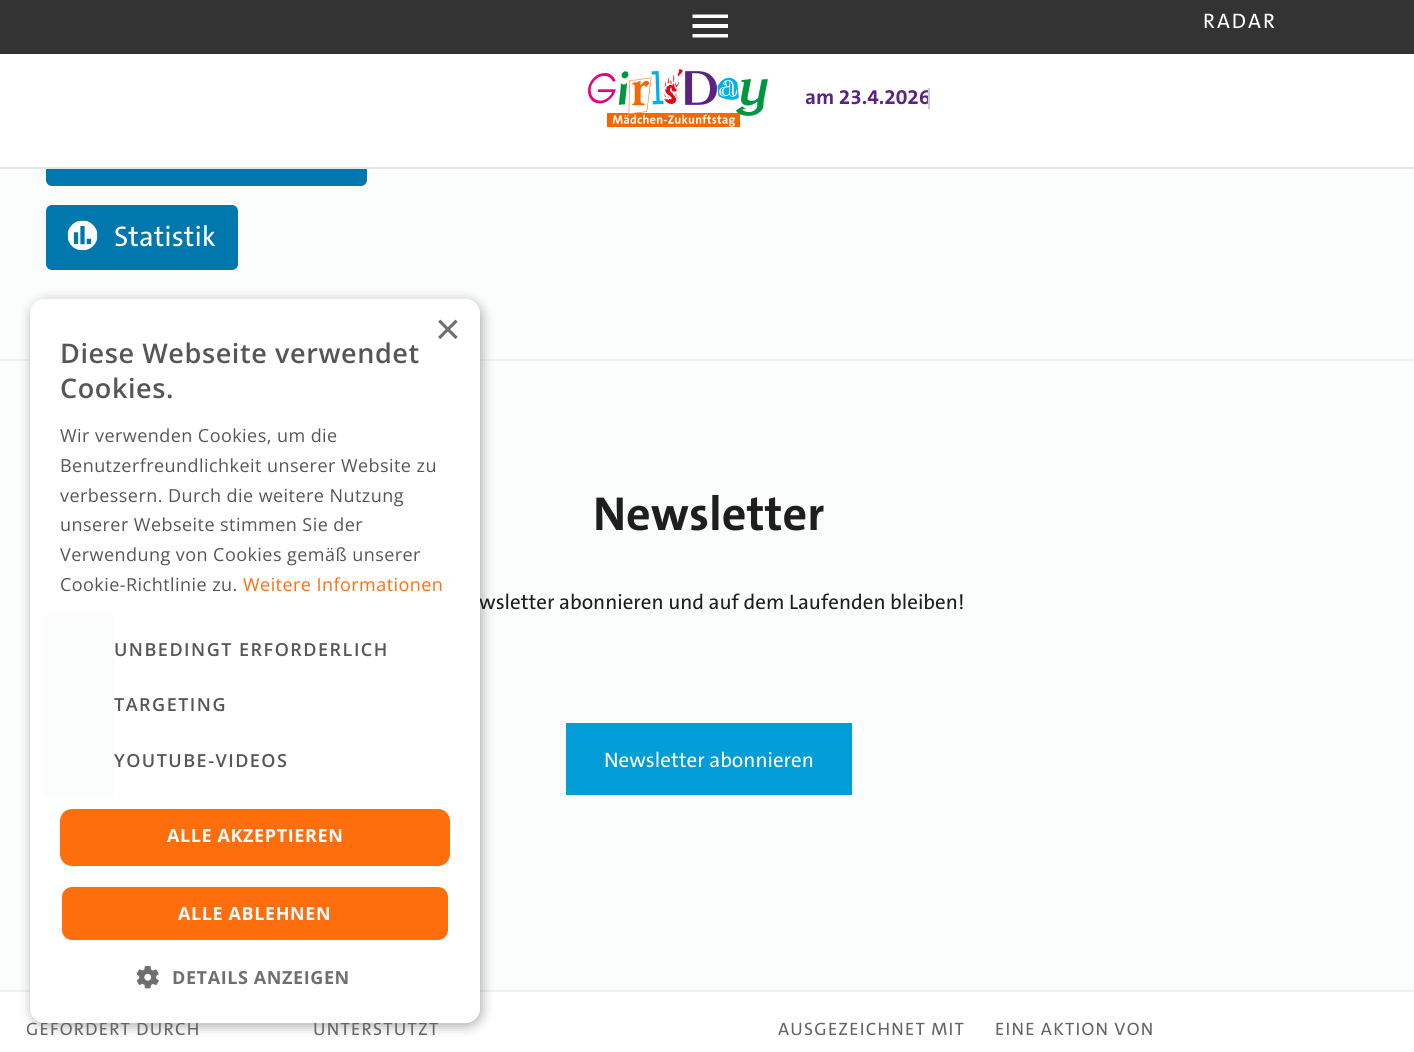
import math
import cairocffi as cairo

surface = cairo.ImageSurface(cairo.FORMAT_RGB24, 1414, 1052)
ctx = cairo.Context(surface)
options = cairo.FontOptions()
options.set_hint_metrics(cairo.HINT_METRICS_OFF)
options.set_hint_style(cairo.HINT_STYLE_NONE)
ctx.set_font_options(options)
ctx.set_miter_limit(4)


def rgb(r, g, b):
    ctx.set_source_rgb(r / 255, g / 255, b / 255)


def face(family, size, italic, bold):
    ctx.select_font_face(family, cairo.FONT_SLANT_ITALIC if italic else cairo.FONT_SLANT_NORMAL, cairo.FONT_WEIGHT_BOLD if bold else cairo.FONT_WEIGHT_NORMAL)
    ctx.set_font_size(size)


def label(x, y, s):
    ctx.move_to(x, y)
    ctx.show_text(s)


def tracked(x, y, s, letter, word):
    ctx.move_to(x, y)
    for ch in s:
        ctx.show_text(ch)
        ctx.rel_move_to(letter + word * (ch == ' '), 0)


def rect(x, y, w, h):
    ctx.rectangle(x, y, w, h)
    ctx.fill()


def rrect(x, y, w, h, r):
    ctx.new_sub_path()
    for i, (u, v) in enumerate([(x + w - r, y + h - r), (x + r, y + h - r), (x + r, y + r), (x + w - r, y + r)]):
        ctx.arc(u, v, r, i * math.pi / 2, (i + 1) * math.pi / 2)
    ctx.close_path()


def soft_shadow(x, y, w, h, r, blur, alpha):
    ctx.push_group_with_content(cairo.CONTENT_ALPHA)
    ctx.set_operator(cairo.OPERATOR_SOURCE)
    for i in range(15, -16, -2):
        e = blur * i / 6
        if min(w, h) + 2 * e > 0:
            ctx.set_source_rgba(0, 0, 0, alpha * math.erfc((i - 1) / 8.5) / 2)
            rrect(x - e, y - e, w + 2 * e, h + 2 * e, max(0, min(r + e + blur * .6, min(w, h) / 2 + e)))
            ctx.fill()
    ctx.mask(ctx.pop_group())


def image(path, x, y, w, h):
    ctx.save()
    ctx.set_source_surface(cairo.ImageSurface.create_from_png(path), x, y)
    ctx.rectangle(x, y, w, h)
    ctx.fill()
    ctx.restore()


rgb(251, 253, 253)
ctx.paint()
rgb(0, 120, 174)
rrect(45, 120, 323, 67, 7)
ctx.fill_preserve()
rgb(255, 255, 255)
ctx.stroke()
rect(0, 54, 1414, 113)
rgb(230, 229, 229)
rect(0, 167, 1414, 2)
rgb(51, 51, 51)
rect(0, 0, 1414, 54)
rgb(255, 255, 255)
ctx.set_fill_rule(cairo.FILL_RULE_EVEN_ODD)
ctx.new_path()
ctx.move_to(692.5, 37.5)
ctx.line_to(728, 37.5)
ctx.line_to(728, 34)
ctx.line_to(692.5, 34)
ctx.close_path()
ctx.move_to(692.5, 28)
ctx.line_to(728, 28)
ctx.line_to(728, 24)
ctx.line_to(692.5, 24)
ctx.close_path()
ctx.move_to(692.5, 14.5)
ctx.line_to(692.5, 18)
ctx.line_to(728, 18)
ctx.line_to(728, 14.5)
ctx.close_path()
ctx.fill()
face('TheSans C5 Medium', 21, 0, 0)
tracked(1203, 28, 'RADAR', 2, 0)
image('image0.png', 588, 69, 180, 58)
ctx.save()
ctx.set_fill_rule(cairo.FILL_RULE_WINDING)
ctx.rectangle(806, 69, 133, 54)
ctx.clip()
face('TheSans C5', 21, 0, 1)
rgb(92, 36, 130)
label(805, 104, 'am 23.4.2026')
ctx.restore()
face('TheSans C5', 21, 0, 1)
rgb(212, 198, 222)
label(926, 104, '|')
rgb(0, 120, 174)
rrect(45, 204, 194, 67, 7)
ctx.fill_preserve()
rgb(255, 255, 255)
ctx.stroke()
image('image1.png', 67, 220, 31, 31)
face('TheSans C5 Medium', 28.5, 0, 0)
label(114, 246, 'Statistik')
rect(0, 992, 1414, 60)
rgb(239, 241, 241)
rect(0, 359, 1414, 2)
rect(0, 990, 1414, 2)
ctx.save()
ctx.new_path()
ctx.move_to(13, 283)
ctx.line_to(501, 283)
ctx.line_to(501, 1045)
ctx.line_to(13, 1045)
ctx.close_path()
ctx.move_to(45, 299)
ctx.line_to(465, 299)
ctx.curve_to(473.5, 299, 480, 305.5, 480, 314)
ctx.line_to(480, 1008)
ctx.curve_to(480, 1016.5, 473.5, 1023, 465, 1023)
ctx.line_to(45, 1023)
ctx.curve_to(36.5, 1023, 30, 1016.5, 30, 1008)
ctx.line_to(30, 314)
ctx.curve_to(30, 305.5, 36.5, 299, 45, 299)
ctx.close_path()
ctx.clip()
rgb(0, 0, 0)
soft_shadow(32, 302, 450, 724, 15, 6, 0.33)
ctx.restore()
face('TheSans C5 Medium', 21, 0, 0)
rgb(30, 30, 30)
label(479, 609, 'wsletter abonnieren und auf dem Laufenden bleiben!')
face('TheSans C5 Medium', 18, 0, 0)
rgb(100, 100, 100)
tracked(26, 1035, 'GEFÖRDERT DURCH', 1.25, 0)
tracked(313, 1035, 'UNTERSTÜTZT', 1.25, 0)
ctx.set_source_rgba(1, 1, 1, 0.95)
rrect(30, 299, 450, 724, 15)
ctx.fill()
face('Liberation Sans', 44, 0, 0)
rgb(110, 111, 111)
label(435, 344, '×')
face('Open Sans SemiBold', 27, 0, 0)
rgb(86, 86, 86)
tracked(60, 363, 'Diese Webseite verwendet', 0.6, 0)
tracked(60, 398, 'Cookies.', 0.6, 0)
face('Open Sans', 18, 0, 0)
tracked(60, 442, 'Wir verwenden Cookies, um die', 0.45, 0)
tracked(60, 472, 'Benutzerfreundlichkeit unserer Website zu', 0.45, 0)
tracked(60, 502, 'verbessern. Durch die weitere Nutzung', 0.45, 0)
tracked(60, 531, 'unserer Webseite stimmen Sie der', 0.45, 0)
tracked(60, 561, 'Verwendung von Cookies gemäß unserer', 0.45, 0)
tracked(60, 591, 'Cookie-Richtlinie zu.', 0.45, 0)
rgb(255, 110, 13)
tracked(243, 591, 'Weitere Informationen', 0.45, 0)
rgb(251, 253, 253)
rect(44, 615, 70, 182)
face('Open Sans SemiBold', 18, 0, 0)
rgb(86, 86, 86)
tracked(114, 656, 'UNBEDINGT ERFORDERLICH', 1.5, 0)
tracked(114, 711, 'TARGETING', 1.5, 0)
tracked(114, 767, 'YOUTUBE-VIDEOS', 1.5, 0)
rgb(255, 110, 13)
rrect(60, 809, 390, 57, 12)
ctx.fill()
face('Open Sans', 18, 0, 1)
rgb(255, 255, 255)
tracked(167, 842, 'ALLE AKZEPTIEREN', 0.6, 0)
rgb(255, 110, 13)
rrect(61, 886, 388, 55, 11)
ctx.fill_preserve()
rgb(255, 255, 255)
ctx.stroke()
tracked(178, 920, 'ALLE ABLEHNEN', 0.6, 0)
image('image2.png', 137, 966, 22, 23)
rgb(110, 111, 111)
tracked(172, 984, 'DETAILS ANZEIGEN', 0.6, 0)
face('TheSans C5', 48, 0, 1)
rgb(30, 30, 30)
label(593, 530, 'Newsletter')
rgb(0, 157, 214)
rect(566, 723, 286, 72)
face('TheSans C5 Medium', 21, 0, 0)
rgb(255, 255, 255)
label(604, 767, 'Newsletter abonnieren')
face('TheSans C5 Medium', 18, 0, 0)
rgb(100, 100, 100)
tracked(778, 1035, 'AUSGEZEICHNET MIT', 1.25, 0)
tracked(995, 1035, 'EINE AKTION VON', 1.25, 0)
surface.write_to_png('render.png')
